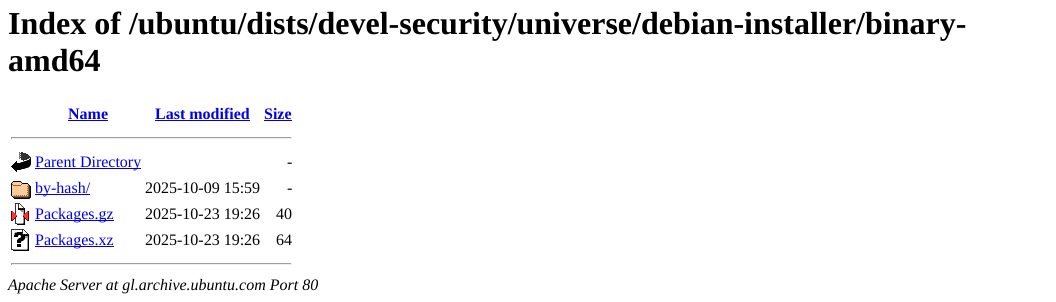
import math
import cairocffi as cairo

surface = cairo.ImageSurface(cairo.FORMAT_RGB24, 1056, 302)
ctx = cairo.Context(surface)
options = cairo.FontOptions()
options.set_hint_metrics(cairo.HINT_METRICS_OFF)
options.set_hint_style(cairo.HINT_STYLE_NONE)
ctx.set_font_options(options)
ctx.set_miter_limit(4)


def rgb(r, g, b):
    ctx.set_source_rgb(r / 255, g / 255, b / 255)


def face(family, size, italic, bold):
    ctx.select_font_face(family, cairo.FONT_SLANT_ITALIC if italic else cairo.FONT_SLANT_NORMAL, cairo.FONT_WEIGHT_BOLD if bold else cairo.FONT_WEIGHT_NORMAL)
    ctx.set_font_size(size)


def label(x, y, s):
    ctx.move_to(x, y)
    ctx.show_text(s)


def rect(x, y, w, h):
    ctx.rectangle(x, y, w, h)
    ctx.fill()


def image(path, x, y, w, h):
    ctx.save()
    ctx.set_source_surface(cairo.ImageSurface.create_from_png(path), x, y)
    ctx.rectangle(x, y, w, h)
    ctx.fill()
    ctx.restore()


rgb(255, 255, 255)
ctx.paint()
face('Liberation Serif', 32, 0, 1)
rgb(0, 0, 0)
label(8, 34, 'Index of /ubuntu/dists/devel-security/universe/debian-installer/binary-')
label(8, 71, 'amd64')
face('Liberation Serif', 16, 0, 1)
rgb(0, 0, 238)
label(68, 119, 'Name')
rect(68, 120, 40, 1)
label(155, 119, 'Last modified')
rect(155, 120, 95, 1)
label(264, 119, 'Size')
rect(264, 120, 28, 1)
rgb(159, 159, 159)
rect(11, 137, 281, 1)
rgb(238, 238, 238)
rect(291, 137, 1, 2)
rect(11, 138, 281, 1)
rgb(159, 159, 159)
rect(11, 137, 1, 2)
image('image0.png', 11, 152, 20, 20)
rgb(0, 0, 238)
rect(35, 168, 106, 1)
face('Liberation Serif', 16, 0, 0)
label(35, 167, 'Parent Directory')
rgb(0, 0, 0)
label(287, 167, '-')
image('image1.png', 11, 181, 20, 18)
rgb(0, 0, 238)
rect(35, 194, 55, 1)
label(35, 193, 'by-hash/')
rgb(0, 0, 0)
label(145, 193, '2025-10-09 15:59')
label(287, 193, '-')
image('image2.png', 11, 203, 18, 22)
rgb(0, 0, 238)
rect(35, 220, 79, 1)
label(35, 219, 'Packages.gz')
rgb(0, 0, 0)
label(145, 219, '2025-10-23 19:26')
label(276, 219, '40')
image('image3.png', 11, 229, 18, 22)
rgb(0, 0, 238)
rect(35, 246, 79, 1)
label(35, 245, 'Packages.xz')
rgb(0, 0, 0)
label(145, 245, '2025-10-23 19:26')
label(276, 245, '64')
rgb(159, 159, 159)
rect(11, 263, 281, 1)
rgb(238, 238, 238)
rect(291, 263, 1, 2)
rect(11, 264, 281, 1)
rgb(159, 159, 159)
rect(11, 263, 1, 2)
face('Liberation Serif', 16, 1, 0)
rgb(0, 0, 0)
label(8, 290, 'Apache Server at gl.archive.ubuntu.com Port 80')
surface.write_to_png('render.png')
